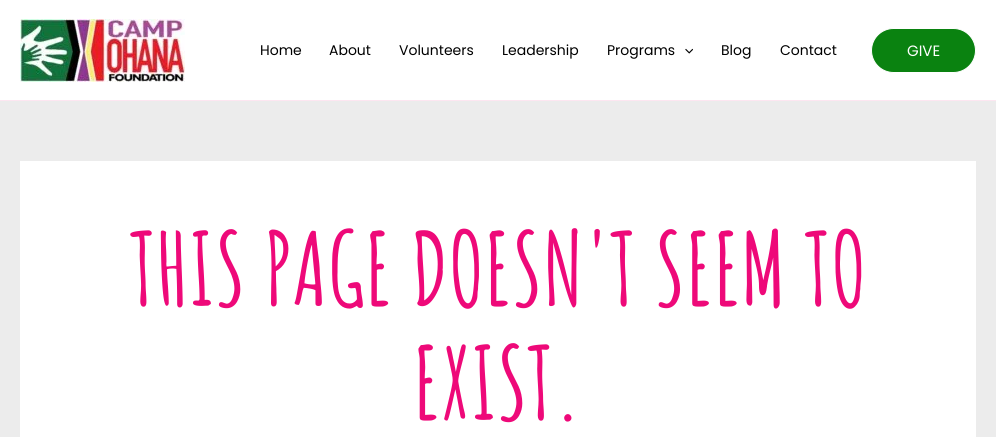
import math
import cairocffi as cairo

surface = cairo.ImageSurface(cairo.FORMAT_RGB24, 996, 437)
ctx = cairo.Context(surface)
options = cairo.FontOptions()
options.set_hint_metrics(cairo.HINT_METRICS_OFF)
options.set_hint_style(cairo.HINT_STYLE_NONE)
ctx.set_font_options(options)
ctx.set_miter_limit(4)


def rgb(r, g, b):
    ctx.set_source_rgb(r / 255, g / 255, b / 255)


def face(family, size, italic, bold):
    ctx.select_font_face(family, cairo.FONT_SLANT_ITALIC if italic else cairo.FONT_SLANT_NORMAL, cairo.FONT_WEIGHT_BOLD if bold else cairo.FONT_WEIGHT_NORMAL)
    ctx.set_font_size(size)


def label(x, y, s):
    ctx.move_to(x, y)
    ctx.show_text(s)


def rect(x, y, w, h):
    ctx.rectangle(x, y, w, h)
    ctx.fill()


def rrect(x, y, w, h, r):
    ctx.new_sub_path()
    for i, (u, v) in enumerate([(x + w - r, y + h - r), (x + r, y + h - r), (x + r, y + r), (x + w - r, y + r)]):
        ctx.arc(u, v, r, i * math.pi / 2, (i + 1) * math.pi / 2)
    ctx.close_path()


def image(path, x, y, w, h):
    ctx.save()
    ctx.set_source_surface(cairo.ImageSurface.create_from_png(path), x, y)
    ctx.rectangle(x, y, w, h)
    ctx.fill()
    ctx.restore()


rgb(236, 236, 236)
ctx.paint()
rgb(255, 255, 255)
rect(0, 0, 996, 100)
rgb(253, 230, 241)
rect(0, 100, 996, 1)
image('image0.png', 20, 19, 165, 63)
face('Poppins', 14, 0, 0)
rgb(0, 0, 0)
label(260, 55, 'Home')
label(329, 55, 'About')
label(399, 55, 'Volunteers')
label(502, 55, 'Leadership')
label(607, 55, 'Programs')
image('image1.png', 685, 48, 8, 6)
label(721, 55, 'Blog')
label(780, 55, 'Contact')
rgb(10, 130, 16)
rrect(871.5, 28.5, 104, 44, 22)
ctx.fill_preserve()
rgb(255, 255, 255)
ctx.set_line_width(1)
ctx.stroke()
face('Poppins', 15, 0, 0)
label(907, 56, 'GIVE')
rect(20, 161, 956, 276)
face('Amatic SC', 100, 0, 1)
rgb(238, 9, 121)
label(130, 306, 'THIS PAGE DOESN\'T SEEM TO')
label(413, 420, 'EXIST.')
surface.write_to_png('render.png')
